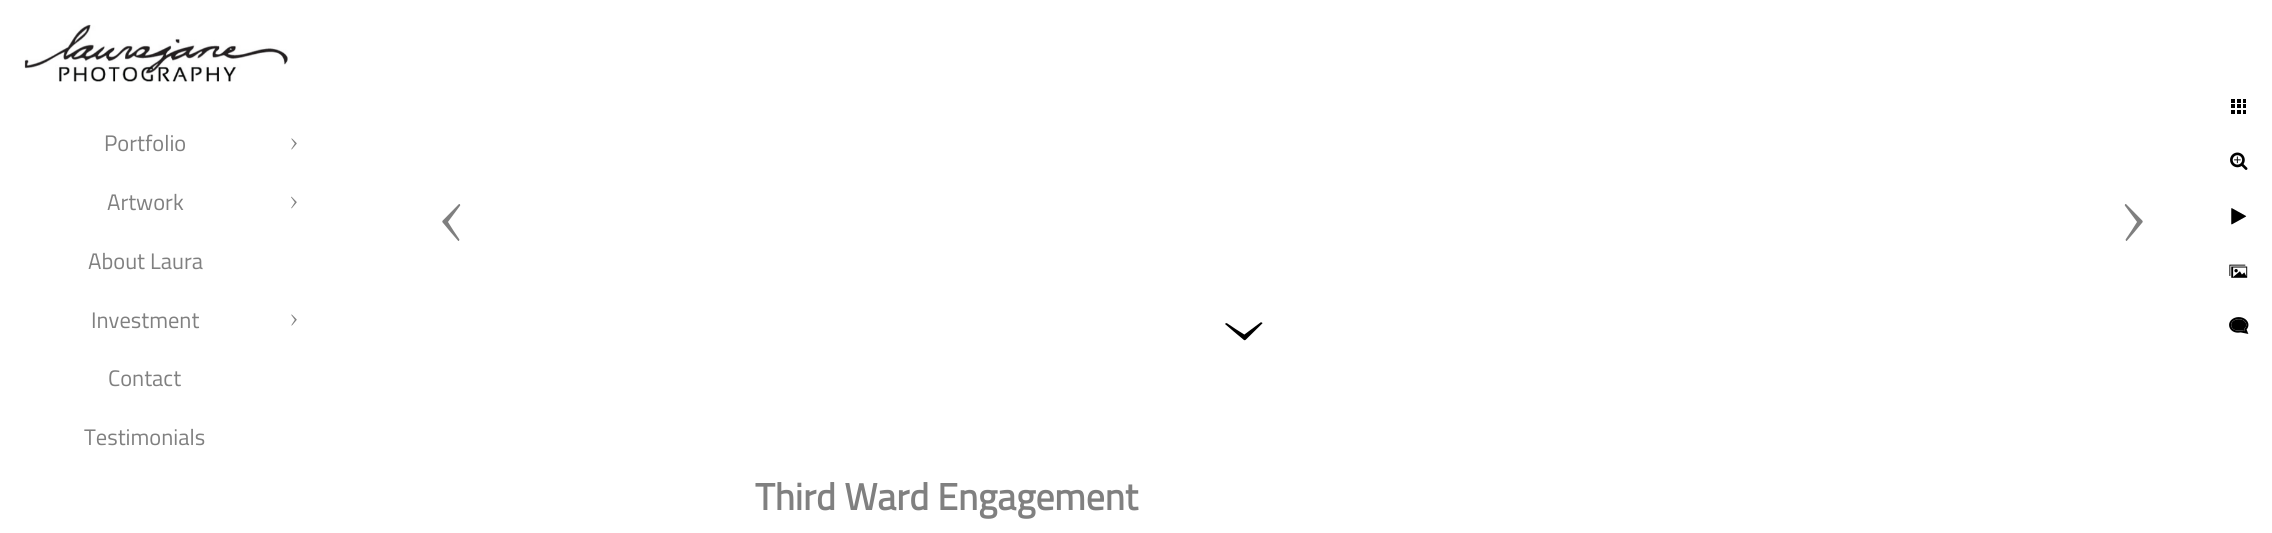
import math
import cairocffi as cairo

surface = cairo.ImageSurface(cairo.FORMAT_RGB24, 2272, 533)
ctx = cairo.Context(surface)
options = cairo.FontOptions()
options.set_hint_metrics(cairo.HINT_METRICS_OFF)
options.set_hint_style(cairo.HINT_STYLE_NONE)
ctx.set_font_options(options)
ctx.set_miter_limit(4)


def rgb(r, g, b):
    ctx.set_source_rgb(r / 255, g / 255, b / 255)


def face(family, size, italic, bold):
    ctx.select_font_face(family, cairo.FONT_SLANT_ITALIC if italic else cairo.FONT_SLANT_NORMAL, cairo.FONT_WEIGHT_BOLD if bold else cairo.FONT_WEIGHT_NORMAL)
    ctx.set_font_size(size)


def label(x, y, s):
    ctx.move_to(x, y)
    ctx.show_text(s)


def image(path, x, y, w, h):
    ctx.save()
    ctx.set_source_surface(cairo.ImageSurface.create_from_png(path), x, y)
    ctx.rectangle(x, y, w, h)
    ctx.fill()
    ctx.restore()


rgb(255, 255, 255)
ctx.paint()
image('image0.png', 24, 24, 264, 58)
face('Titillium Web', 22.5, 0, 0)
rgb(128, 128, 128)
label(104, 151, 'Portfolio')
image('image1.png', 291, 138, 6, 12)
label(107, 210, 'Artwork')
image('image2.png', 291, 196, 6, 13)
label(88, 269, 'About Laura')
label(91, 328, 'Investment')
image('image3.png', 291, 314, 6, 12)
label(108, 386, 'Contact')
label(84, 445, 'Testimonials')
image('image4.png', 442, 204, 19, 37)
image('image5.png', 2124, 204, 19, 37)
image('image6.png', 1225, 322, 38, 19)
image('image7.png', 2231, 99, 15, 15)
image('image8.png', 2230, 152, 18, 18)
image('image9.png', 2231, 208, 16, 17)
image('image10.png', 2229, 264, 19, 14)
image('image11.png', 2229, 317, 20, 17)
face('Titillium Web', 37.5, 0, 1)
label(755, 510, 'Third Ward Engagement')
surface.write_to_png('render.png')
